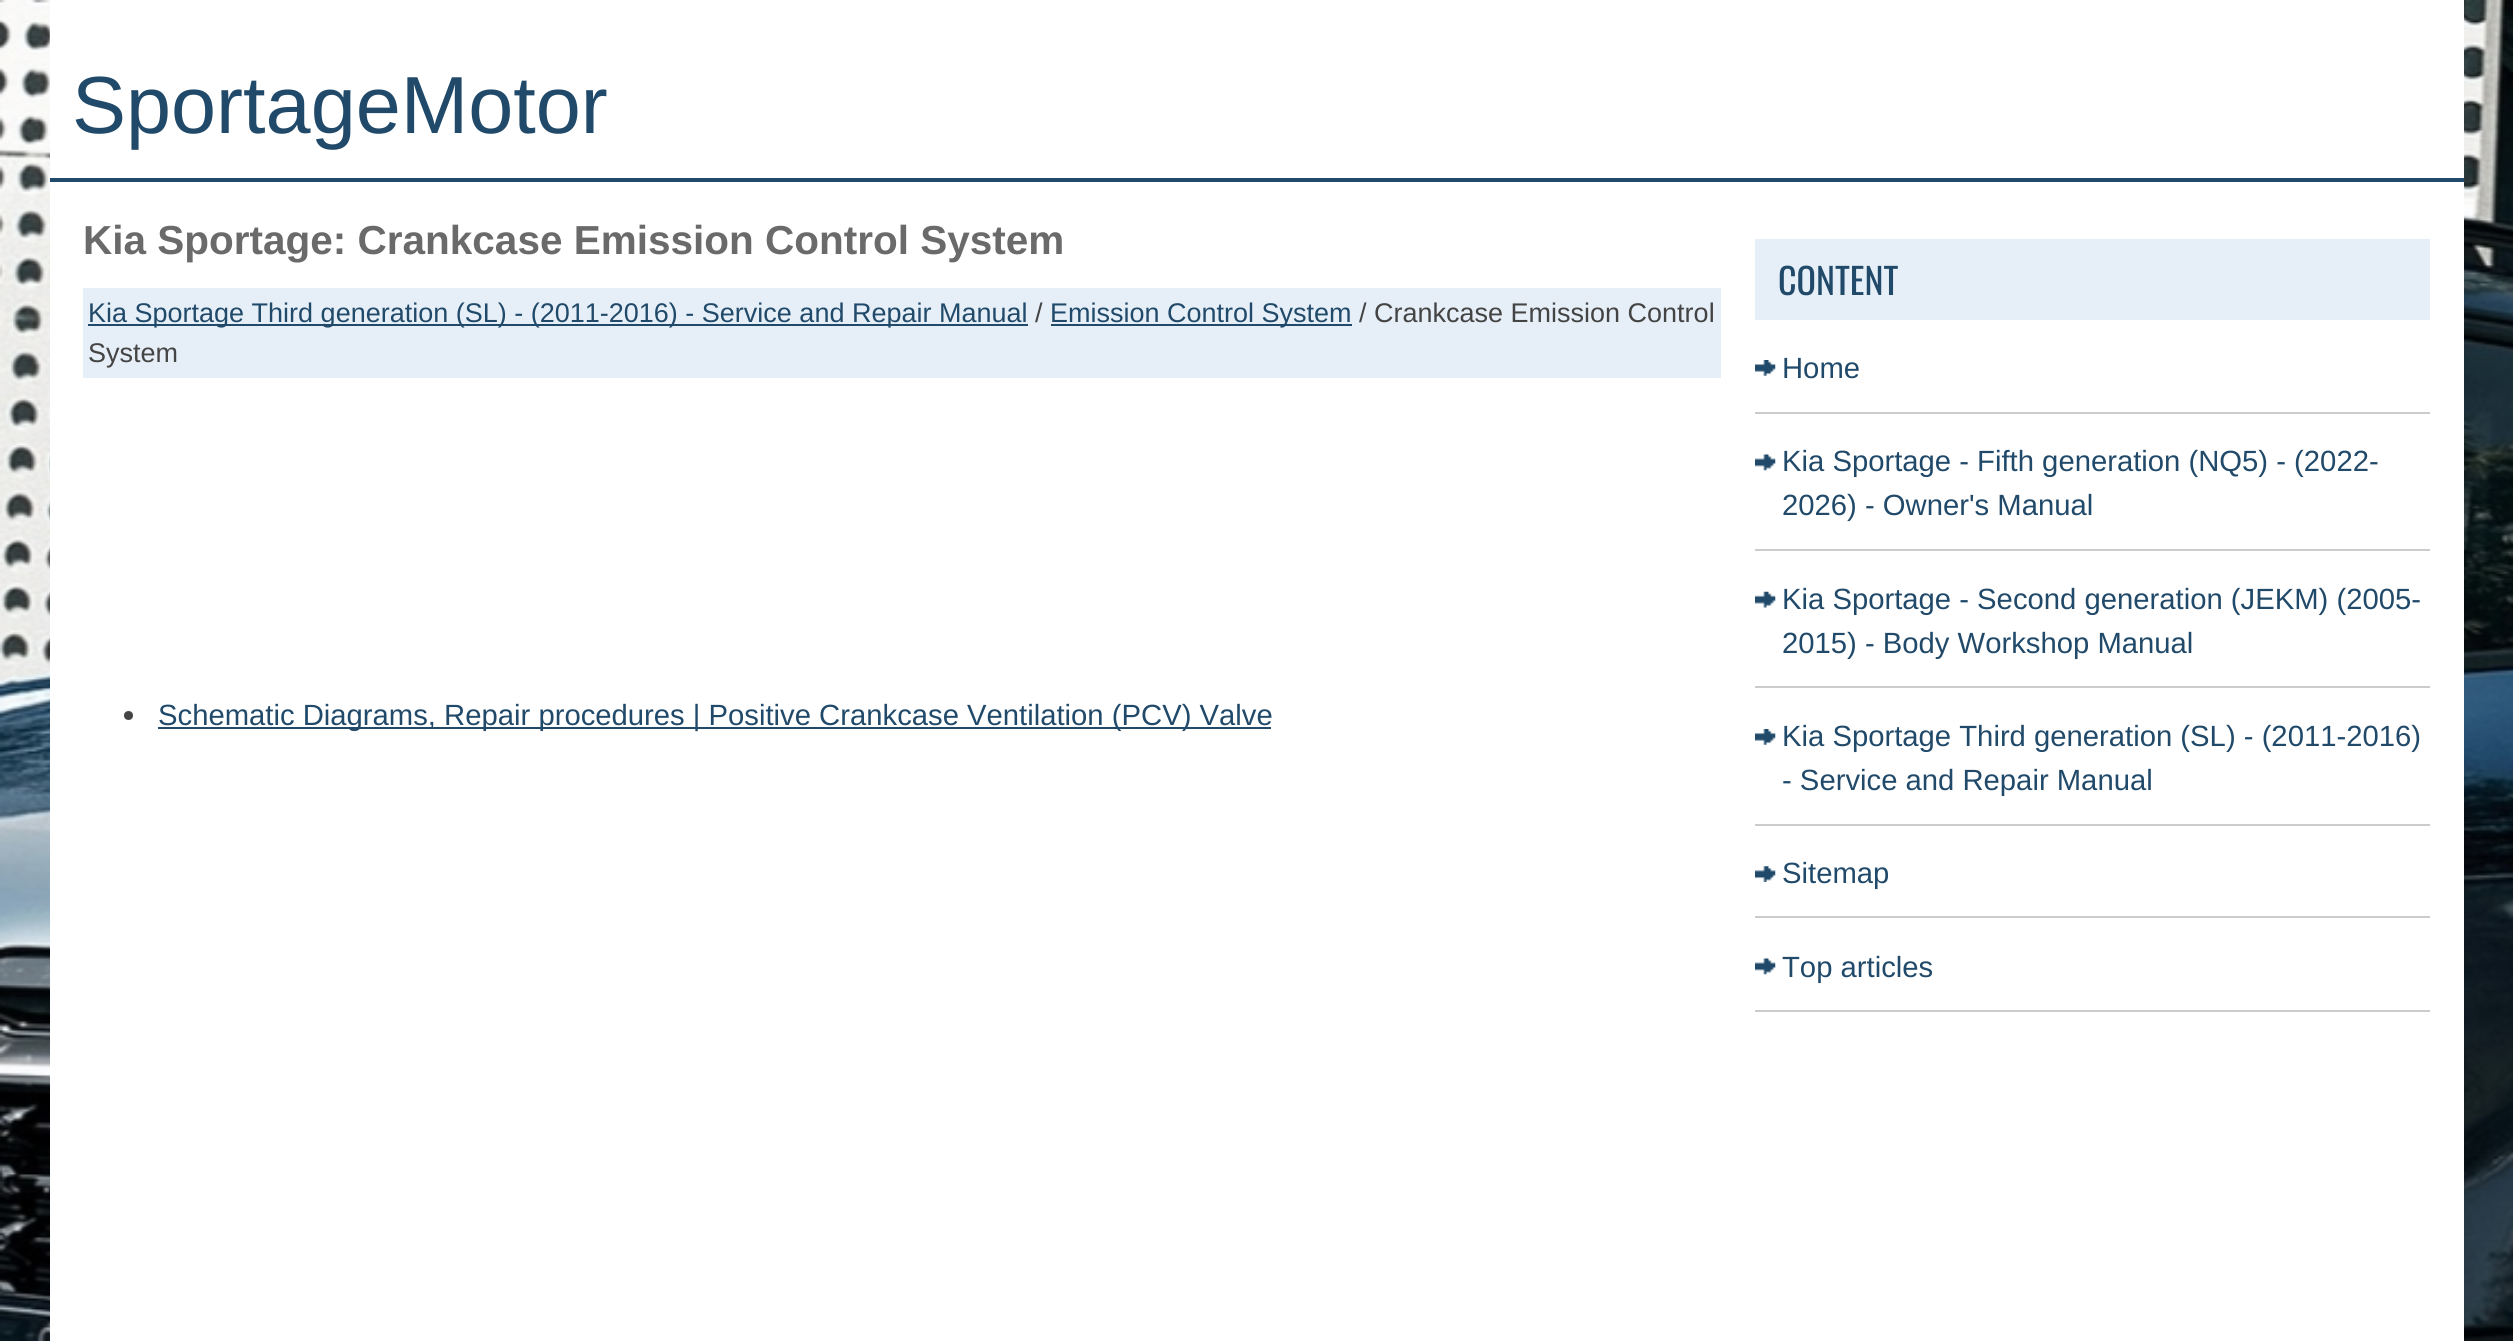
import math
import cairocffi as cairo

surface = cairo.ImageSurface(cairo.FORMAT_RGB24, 2513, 1341)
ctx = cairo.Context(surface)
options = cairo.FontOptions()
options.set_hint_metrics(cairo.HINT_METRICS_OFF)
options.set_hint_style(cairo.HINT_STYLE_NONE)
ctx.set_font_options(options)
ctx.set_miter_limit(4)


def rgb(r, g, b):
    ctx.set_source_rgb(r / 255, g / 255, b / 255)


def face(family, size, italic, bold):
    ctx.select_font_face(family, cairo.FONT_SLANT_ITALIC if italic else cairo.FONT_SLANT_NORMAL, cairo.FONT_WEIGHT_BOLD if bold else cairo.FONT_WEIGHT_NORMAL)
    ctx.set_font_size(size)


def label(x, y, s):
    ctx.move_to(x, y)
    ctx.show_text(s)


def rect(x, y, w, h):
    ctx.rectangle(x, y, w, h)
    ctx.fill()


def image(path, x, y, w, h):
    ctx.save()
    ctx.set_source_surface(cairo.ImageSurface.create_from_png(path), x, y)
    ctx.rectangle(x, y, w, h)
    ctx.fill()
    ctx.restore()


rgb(255, 255, 255)
ctx.paint()
image('image0.png', 0, 0, 2513, 1341)
rgb(255, 255, 255)
rect(50, 0, 2414, 178)
face('Liberation Sans', 81, 0, 0)
rgb(33, 74, 106)
label(72, 133, 'SportageMotor')
rect(50, 178, 2414, 4)
rgb(255, 255, 255)
rect(50, 182, 2414, 1159)
face('Liberation Sans', 40.5, 0, 1)
rgb(106, 106, 106)
label(83, 254, 'Kia Sportage: Crankcase Emission Control System')
rgb(230, 239, 247)
rect(83, 288, 1638, 90)
rgb(33, 74, 106)
rect(88, 324, 940, 2)
face('Liberation Sans', 27, 0, 0)
label(88, 322, 'Kia Sportage Third generation (SL) - (2011-2016) - Service and Repair Manual')
rgb(68, 68, 68)
label(1035, 322, '/')
rgb(33, 74, 106)
rect(1051, 324, 301, 2)
label(1050, 322, 'Emission Control System')
rgb(68, 68, 68)
label(1359, 322, '/ Crankcase Emission Control')
label(88, 362, 'System')
ctx.new_path()
ctx.arc(128.5, 715.5, 4.5, 0, 2 * math.pi)
ctx.fill()
rgb(33, 74, 106)
rect(158, 727, 1113, 2)
face('Liberation Sans', 29.25, 0, 0)
label(158, 725, 'Schematic Diagrams, Repair procedures | Positive Crankcase Ventilation (PCV) Valve')
rgb(230, 239, 247)
rect(1755, 239, 675, 81)
face('Oswald', 36, 0, 0)
rgb(33, 74, 106)
label(1778, 295, 'CONTENT')
image('image1.png', 1755, 360, 21, 16)
rgb(204, 204, 204)
rect(1755, 412, 675, 2)
face('Liberation Sans', 29.25, 0, 0)
rgb(33, 74, 106)
label(1782, 378, 'Home')
image('image2.png', 1755, 454, 21, 17)
rgb(204, 204, 204)
rect(1755, 549, 675, 2)
rgb(33, 74, 106)
label(1782, 471, 'Kia Sportage - Fifth generation (NQ5) - (2022-')
label(1782, 515, '2026) - Owner\'s Manual')
image('image3.png', 1755, 591, 21, 17)
rgb(204, 204, 204)
rect(1755, 686, 675, 2)
rgb(33, 74, 106)
label(1782, 609, 'Kia Sportage - Second generation (JEKM) (2005-')
label(1782, 653, '2015) - Body Workshop Manual')
image('image1.png', 1755, 729, 21, 16)
rgb(204, 204, 204)
rect(1755, 824, 675, 2)
rgb(33, 74, 106)
label(1782, 746, 'Kia Sportage Third generation (SL) - (2011-2016)')
label(1782, 790, '- Service and Repair Manual')
image('image4.png', 1755, 866, 21, 16)
rgb(204, 204, 204)
rect(1755, 916, 675, 2)
rgb(33, 74, 106)
label(1782, 883, 'Sitemap')
image('image2.png', 1755, 958, 21, 17)
rgb(204, 204, 204)
rect(1755, 1010, 675, 2)
rgb(33, 74, 106)
label(1782, 977, 'Top articles')
surface.write_to_png('render.png')
